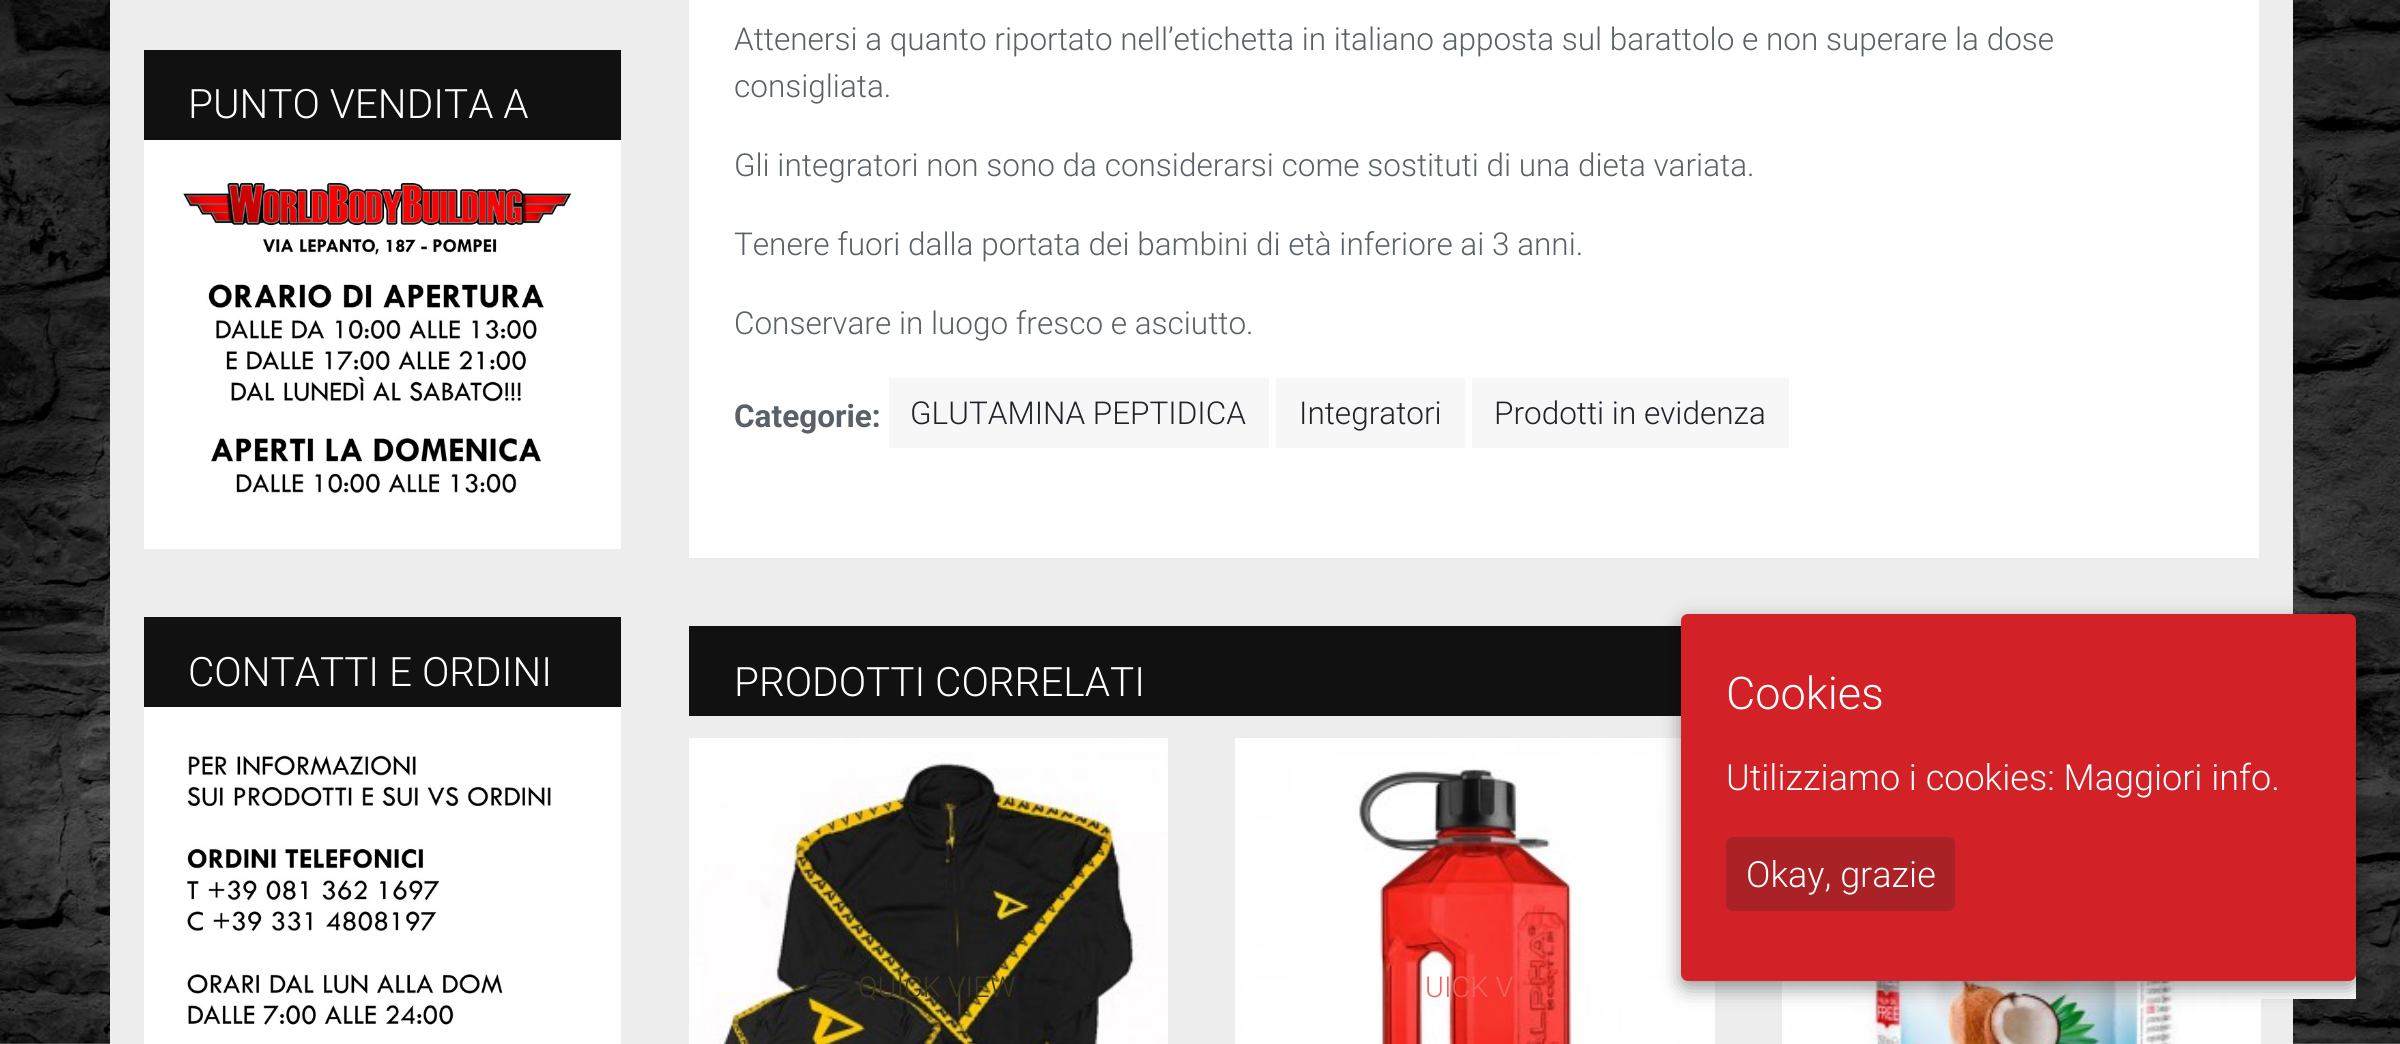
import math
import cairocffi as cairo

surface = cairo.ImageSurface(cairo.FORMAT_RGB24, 2400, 1044)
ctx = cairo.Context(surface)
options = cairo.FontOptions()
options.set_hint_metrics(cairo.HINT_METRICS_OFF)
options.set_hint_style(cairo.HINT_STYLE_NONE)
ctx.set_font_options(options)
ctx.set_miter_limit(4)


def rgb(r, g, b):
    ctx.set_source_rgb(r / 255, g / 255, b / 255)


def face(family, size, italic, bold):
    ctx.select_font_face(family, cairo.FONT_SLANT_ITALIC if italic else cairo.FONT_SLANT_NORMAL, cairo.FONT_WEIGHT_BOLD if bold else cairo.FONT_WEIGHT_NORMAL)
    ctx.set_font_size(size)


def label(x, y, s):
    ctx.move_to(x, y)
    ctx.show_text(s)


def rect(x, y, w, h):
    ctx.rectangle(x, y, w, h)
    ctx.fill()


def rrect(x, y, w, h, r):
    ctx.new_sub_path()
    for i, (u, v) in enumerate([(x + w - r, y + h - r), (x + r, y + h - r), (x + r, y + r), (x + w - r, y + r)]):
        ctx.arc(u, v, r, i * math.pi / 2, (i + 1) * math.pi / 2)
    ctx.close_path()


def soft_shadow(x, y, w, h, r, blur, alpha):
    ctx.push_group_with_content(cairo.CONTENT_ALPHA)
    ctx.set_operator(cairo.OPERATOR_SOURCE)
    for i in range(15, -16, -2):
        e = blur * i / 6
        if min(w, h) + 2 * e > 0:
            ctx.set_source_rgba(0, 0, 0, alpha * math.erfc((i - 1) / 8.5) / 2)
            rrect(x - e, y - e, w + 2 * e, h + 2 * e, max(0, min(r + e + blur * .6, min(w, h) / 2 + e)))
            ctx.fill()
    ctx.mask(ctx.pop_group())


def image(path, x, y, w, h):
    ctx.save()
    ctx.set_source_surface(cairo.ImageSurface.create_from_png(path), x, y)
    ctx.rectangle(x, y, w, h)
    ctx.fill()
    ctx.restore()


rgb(255, 255, 255)
ctx.paint()
image('image0.png', 0, 0, 2400, 1044)
gradient = cairo.LinearGradient(1201, -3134, 1202, 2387)
gradient.add_color_stop_rgba(0.82, 0.929, 0.929, 0.929, 1)
gradient.add_color_stop_rgba(1, 0.867, 0.89, 0.902, 1)
ctx.set_source(gradient)
rect(110, 0, 2183, 1044)
rgb(17, 17, 17)
rect(144, 50, 477, 90)
face('Roboto Light', 40.5, 0, 0)
rgb(255, 255, 255)
label(188, 118, 'PUNTO VENDITA A')
rect(144, 140, 477, 409)
image('image1.png', 183, 179, 389, 317)
rgb(17, 17, 17)
rect(144, 617, 477, 90)
rgb(255, 255, 255)
label(188, 686, 'CONTATTI E ORDINI')
rect(144, 707, 477, 337)
image('image2.png', 183, 752, 369, 273)
rect(689, 0, 1570, 558)
face('Roboto Light', 31.5, 0, 0)
rgb(89, 96, 103)
label(734, 50, 'Attenersi a quanto riportato nell’etichetta in italiano apposta sul barattolo e non superare la dose')
label(734, 97, 'consigliata.')
label(734, 176, 'Gli integratori non sono da considerarsi come sostituti di una dieta variata.')
label(734, 255, 'Tenere fuori dalla portata dei bambini di età inferiore ai 3 anni.')
label(734, 334, 'Conservare in luogo fresco e asciutto.')
face('Roboto', 31.5, 0, 1)
label(734, 427, 'Categorie:')
rgb(247, 247, 247)
rect(889, 378, 380, 70)
face('Roboto Light', 31.5, 0, 0)
rgb(31, 34, 40)
label(910, 424, 'GLUTAMINA PEPTIDICA')
rgb(247, 247, 247)
rect(1276, 378, 189, 70)
rgb(31, 34, 40)
label(1299, 424, 'Integratori')
rgb(247, 247, 247)
rect(1472, 378, 317, 70)
rgb(31, 34, 40)
label(1494, 424, 'Prodotti in evidenza')
rgb(17, 17, 17)
rect(689, 626, 992, 90)
face('Roboto Light', 40.5, 0, 0)
rgb(255, 255, 255)
label(734, 696, 'PRODOTTI CORRELATI')
image('image3.png', 689, 738, 479, 306)
face('Roboto Light', 28.75, 0, 0)
rgb(62, 56, 29)
label(858, 997, 'QUICK VIEW')
image('image4.png', 1235, 738, 480, 306)
rgb(239, 99, 94)
label(1425, 997, 'UICK V')
image('image5.png', 1782, 981, 479, 63)
rgb(255, 255, 255)
rect(2243, 974, 113, 25)
rgb(0, 0, 0)
soft_shadow(1681, 621, 675, 367, 7, 10, 0.4)
rgb(210, 34, 39)
rrect(1681, 614, 675, 367, 7)
ctx.fill()
face('Roboto Light', 45, 0, 0)
rgb(255, 255, 255)
label(1726, 709, 'Cookies')
face('Roboto Light', 36, 0, 0)
label(1726, 790, 'Utilizziamo i cookies: Maggiori info.')
rgb(171, 34, 38)
rrect(1726, 837, 229, 74, 7)
ctx.fill()
rgb(255, 255, 255)
label(1746, 887, 'Okay, grazie')
surface.write_to_png('render.png')
